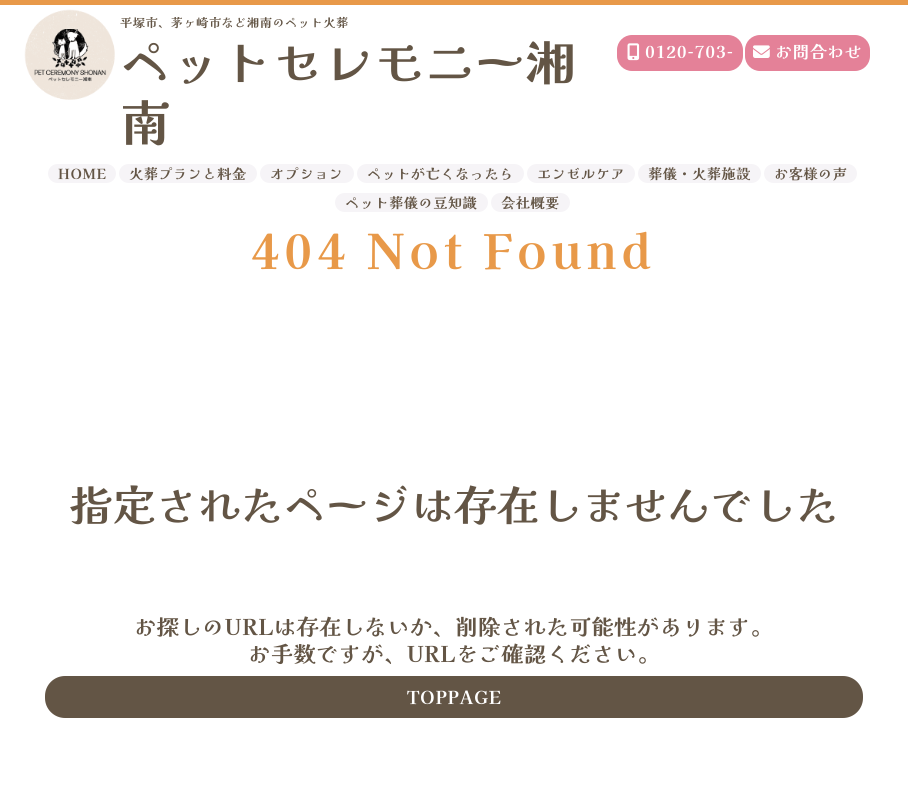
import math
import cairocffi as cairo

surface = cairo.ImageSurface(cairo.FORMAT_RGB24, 908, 809)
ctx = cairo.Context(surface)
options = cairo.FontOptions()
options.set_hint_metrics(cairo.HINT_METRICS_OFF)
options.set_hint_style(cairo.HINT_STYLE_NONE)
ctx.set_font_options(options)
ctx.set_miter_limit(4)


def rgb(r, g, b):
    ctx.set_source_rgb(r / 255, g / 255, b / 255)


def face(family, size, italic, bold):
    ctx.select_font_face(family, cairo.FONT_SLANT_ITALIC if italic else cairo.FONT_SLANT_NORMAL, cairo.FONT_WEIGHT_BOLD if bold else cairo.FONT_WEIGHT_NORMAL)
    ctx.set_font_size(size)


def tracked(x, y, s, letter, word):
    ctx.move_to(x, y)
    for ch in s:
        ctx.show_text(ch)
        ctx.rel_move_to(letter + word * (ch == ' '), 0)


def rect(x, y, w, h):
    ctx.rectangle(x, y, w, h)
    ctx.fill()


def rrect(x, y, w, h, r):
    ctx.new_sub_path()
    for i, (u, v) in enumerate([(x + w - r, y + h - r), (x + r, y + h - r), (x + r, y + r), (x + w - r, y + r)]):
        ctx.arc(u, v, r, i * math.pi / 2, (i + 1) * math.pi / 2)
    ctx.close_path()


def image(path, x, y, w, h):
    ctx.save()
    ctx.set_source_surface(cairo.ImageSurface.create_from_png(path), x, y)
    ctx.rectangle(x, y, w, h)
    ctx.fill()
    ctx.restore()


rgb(255, 255, 255)
ctx.paint()
rgb(232, 153, 73)
rect(0, 0, 908, 5)
image('image0.png', 24, 9, 91, 91)
face('Kaisei Decol', 12, 0, 1)
rgb(99, 85, 69)
tracked(120, 27, '平塚市、茅ヶ崎市など湘南のペット火葬', 0.7, 0)
face('Kaisei Decol', 50, 0, 1)
tracked(120, 81, 'ペットセレモニー湘', 0.7, 0)
tracked(120, 141, '南', 0.7, 0)
rgb(228, 129, 152)
rrect(617, 35, 126, 36, 15)
ctx.fill()
image('image1.png', 627, 43, 13, 18)
face('Kaisei Decol', 16.75, 0, 1)
rgb(255, 255, 255)
tracked(645, 58, '0120-703-', 0.7, 0)
rgb(228, 129, 152)
rrect(745, 35, 125, 36, 15)
ctx.fill()
image('image2.png', 753, 45, 17, 13)
rgb(255, 255, 255)
tracked(775, 58, 'お問合わせ', 0.7, 0)
rgb(246, 244, 247)
rrect(48, 164, 68, 19, 9.5)
ctx.fill()
face('Kaisei Decol', 14, 0, 1)
rgb(99, 85, 69)
tracked(58, 179, 'HOME', 0.7, 0)
rgb(246, 244, 247)
rrect(119, 164, 138, 19, 9.5)
ctx.fill()
rgb(99, 85, 69)
tracked(129, 179, '火葬プランと料金', 0.7, 0)
rgb(246, 244, 247)
rrect(260, 164, 94, 19, 9.5)
ctx.fill()
rgb(99, 85, 69)
tracked(270, 179, 'オプション', 0.7, 0)
rgb(246, 244, 247)
rrect(357, 164, 167, 19, 9.5)
ctx.fill()
rgb(99, 85, 69)
tracked(367, 179, 'ペットが亡くなったら', 0.7, 0)
rgb(246, 244, 247)
rrect(527, 164, 108, 19, 9.5)
ctx.fill()
rgb(99, 85, 69)
tracked(537, 179, 'エンゼルケア', 0.7, 0)
rgb(246, 244, 247)
rrect(638, 164, 123, 19, 9.5)
ctx.fill()
rgb(99, 85, 69)
tracked(648, 179, '葬儀・火葬施設', 0.7, 0)
rgb(246, 244, 247)
rrect(764, 164, 93, 19, 9.5)
ctx.fill()
rgb(99, 85, 69)
tracked(774, 179, 'お客様の声', 0.7, 0)
rgb(246, 244, 247)
rrect(335, 193, 153, 19, 9.5)
ctx.fill()
rgb(99, 85, 69)
tracked(345, 208, 'ペット葬儀の豆知識', 0.7, 0)
rgb(246, 244, 247)
rrect(491, 193, 79, 19, 9.5)
ctx.fill()
rgb(99, 85, 69)
tracked(501, 208, '会社概要', 0.7, 0)
face('Kaisei Decol', 48, 0, 1)
rgb(232, 153, 73)
tracked(251, 269, '404 Not Found', 4.75, 0)
face('Kaisei Decol', 42, 0, 1)
rgb(99, 85, 69)
tracked(70, 521, '指定されたページは存在しませんでした', 0.7, 0)
face('Kaisei Decol', 22, 0, 1)
tracked(134, 635, 'お探しのURLは存在しないか、削除された可能性があります。', 0.7, 0)
tracked(248, 662, 'お手数ですが、URLをご確認ください。', 0.7, 0)
rrect(46, 677, 816, 40, 19)
ctx.fill_preserve()
ctx.stroke()
face('Kaisei Decol', 18, 0, 1)
rgb(255, 255, 255)
tracked(407, 704, 'TOPPAGE', 0.7, 0)
surface.write_to_png('render.png')
